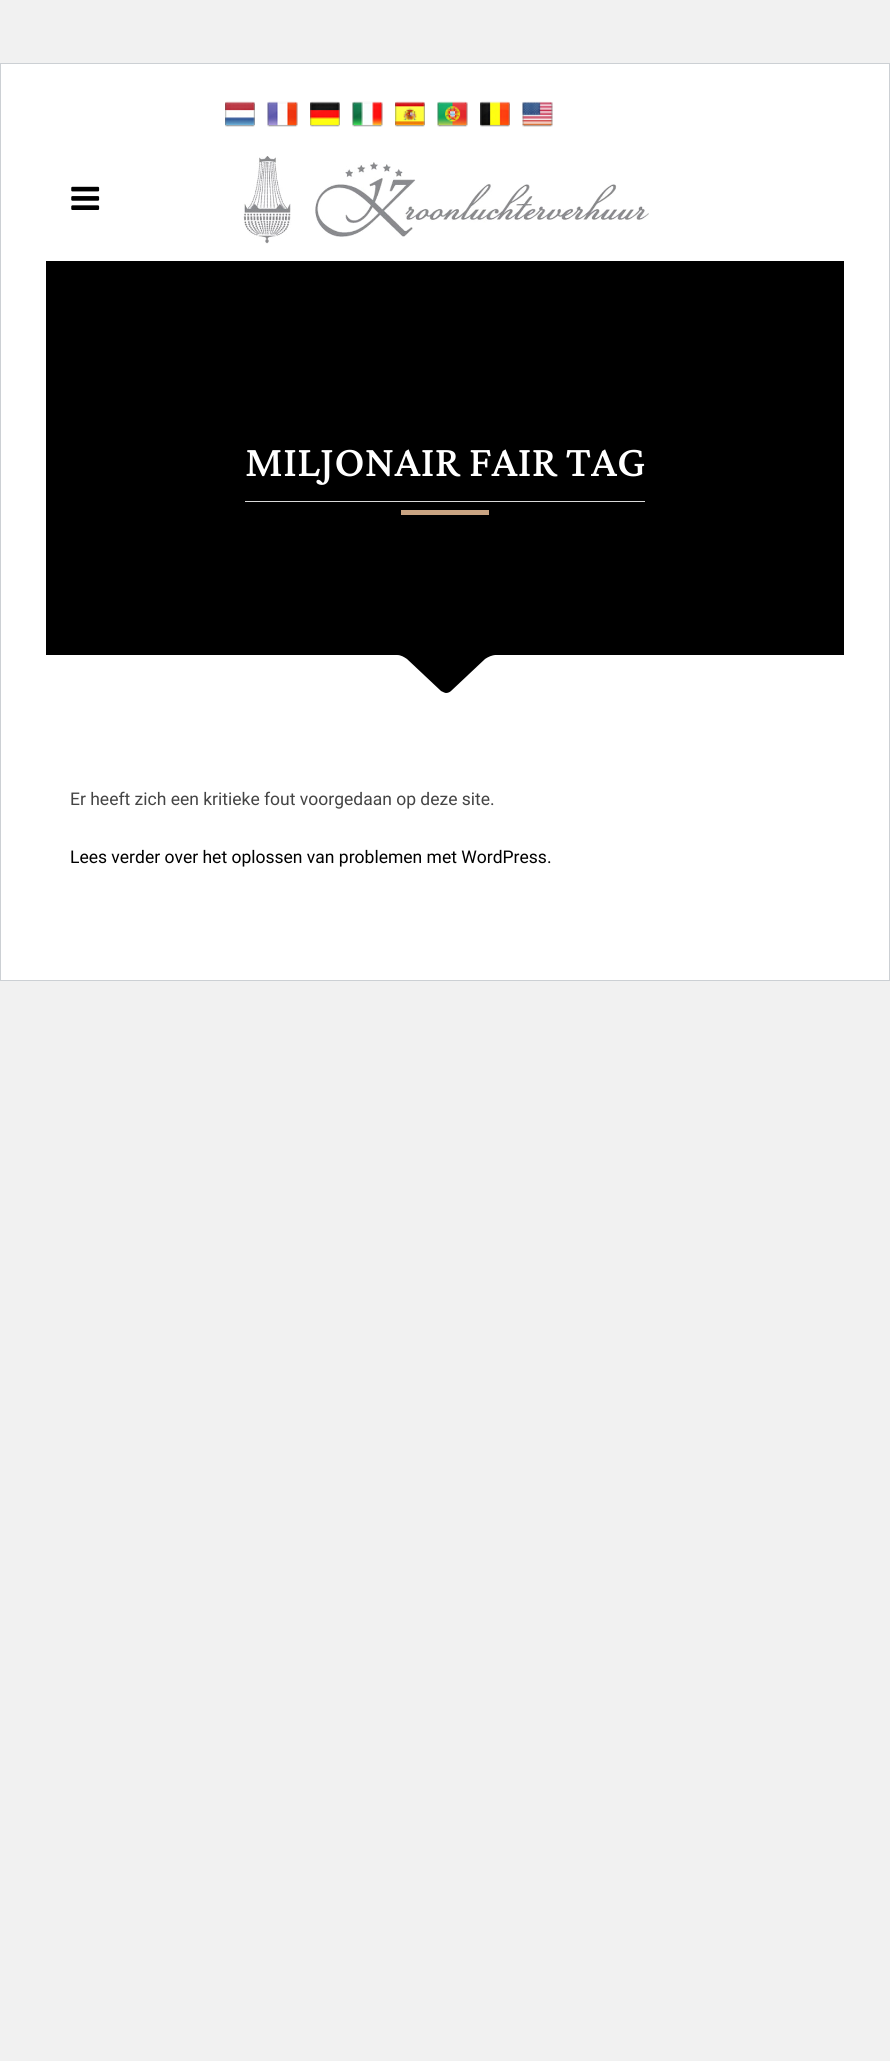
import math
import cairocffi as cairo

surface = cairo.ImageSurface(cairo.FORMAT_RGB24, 890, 2061)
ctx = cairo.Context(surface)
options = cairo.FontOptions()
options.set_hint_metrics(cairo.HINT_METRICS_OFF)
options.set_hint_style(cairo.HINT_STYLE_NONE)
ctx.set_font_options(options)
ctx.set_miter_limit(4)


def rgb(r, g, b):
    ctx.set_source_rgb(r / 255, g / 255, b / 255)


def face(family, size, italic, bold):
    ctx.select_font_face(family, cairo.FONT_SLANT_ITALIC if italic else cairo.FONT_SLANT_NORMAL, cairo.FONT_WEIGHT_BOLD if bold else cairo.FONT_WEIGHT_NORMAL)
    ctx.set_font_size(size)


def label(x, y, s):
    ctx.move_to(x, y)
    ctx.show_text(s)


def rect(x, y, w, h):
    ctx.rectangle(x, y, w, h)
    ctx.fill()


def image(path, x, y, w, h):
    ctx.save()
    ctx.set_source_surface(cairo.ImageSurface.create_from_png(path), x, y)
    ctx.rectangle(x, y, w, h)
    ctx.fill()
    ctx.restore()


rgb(241, 241, 241)
ctx.paint()
rgb(255, 255, 255)
ctx.rectangle(0.5, 63.5, 889, 917)
ctx.fill_preserve()
rgb(204, 208, 212)
ctx.set_line_width(1)
ctx.stroke()
image('image0.png', 225, 101, 30, 26)
image('image1.png', 267, 101, 31, 26)
image('image2.png', 310, 101, 30, 26)
image('image3.png', 352, 101, 31, 26)
image('image4.png', 395, 101, 30, 26)
image('image5.png', 437, 101, 31, 26)
image('image6.png', 480, 101, 30, 26)
image('image7.png', 522, 101, 31, 26)
image('image8.png', 71, 186, 29, 24)
image('image9.png', 243, 156, 406, 88)
rgb(0, 0, 0)
rect(46, 261, 798, 432)
rgb(218, 218, 218)
rect(245, 501, 400, 1)
face('Lateef', 56.25, 0, 0)
rgb(255, 255, 255)
label(245, 476, 'MILJONAIR FAIR TAG')
rgb(201, 164, 130)
rect(401, 510, 88, 5)
rgb(255, 255, 255)
rect(46, 655, 350, 38)
ctx.new_path()
ctx.move_to(496, 695)
ctx.line_to(496, 655)
ctx.curve_to(492, 655, 488, 657, 485, 659)
ctx.line_to(451, 691)
ctx.curve_to(450, 692, 448, 693, 446, 693)
ctx.curve_to(445, 693, 443, 692, 441, 691)
ctx.line_to(407, 659)
ctx.curve_to(404, 657, 401, 655, 397, 655)
ctx.line_to(396, 655)
ctx.line_to(396, 695)
ctx.close_path()
ctx.fill()
rect(495, 655, 349, 38)
face('Roboto', 17.5, 0, 0)
rgb(68, 68, 68)
label(70, 805, 'Er heeft zich een kritieke fout voorgedaan op deze site.')
rgb(0, 0, 0)
label(70, 863, 'Lees verder over het oplossen van problemen met WordPress.')
surface.write_to_png('render.png')
